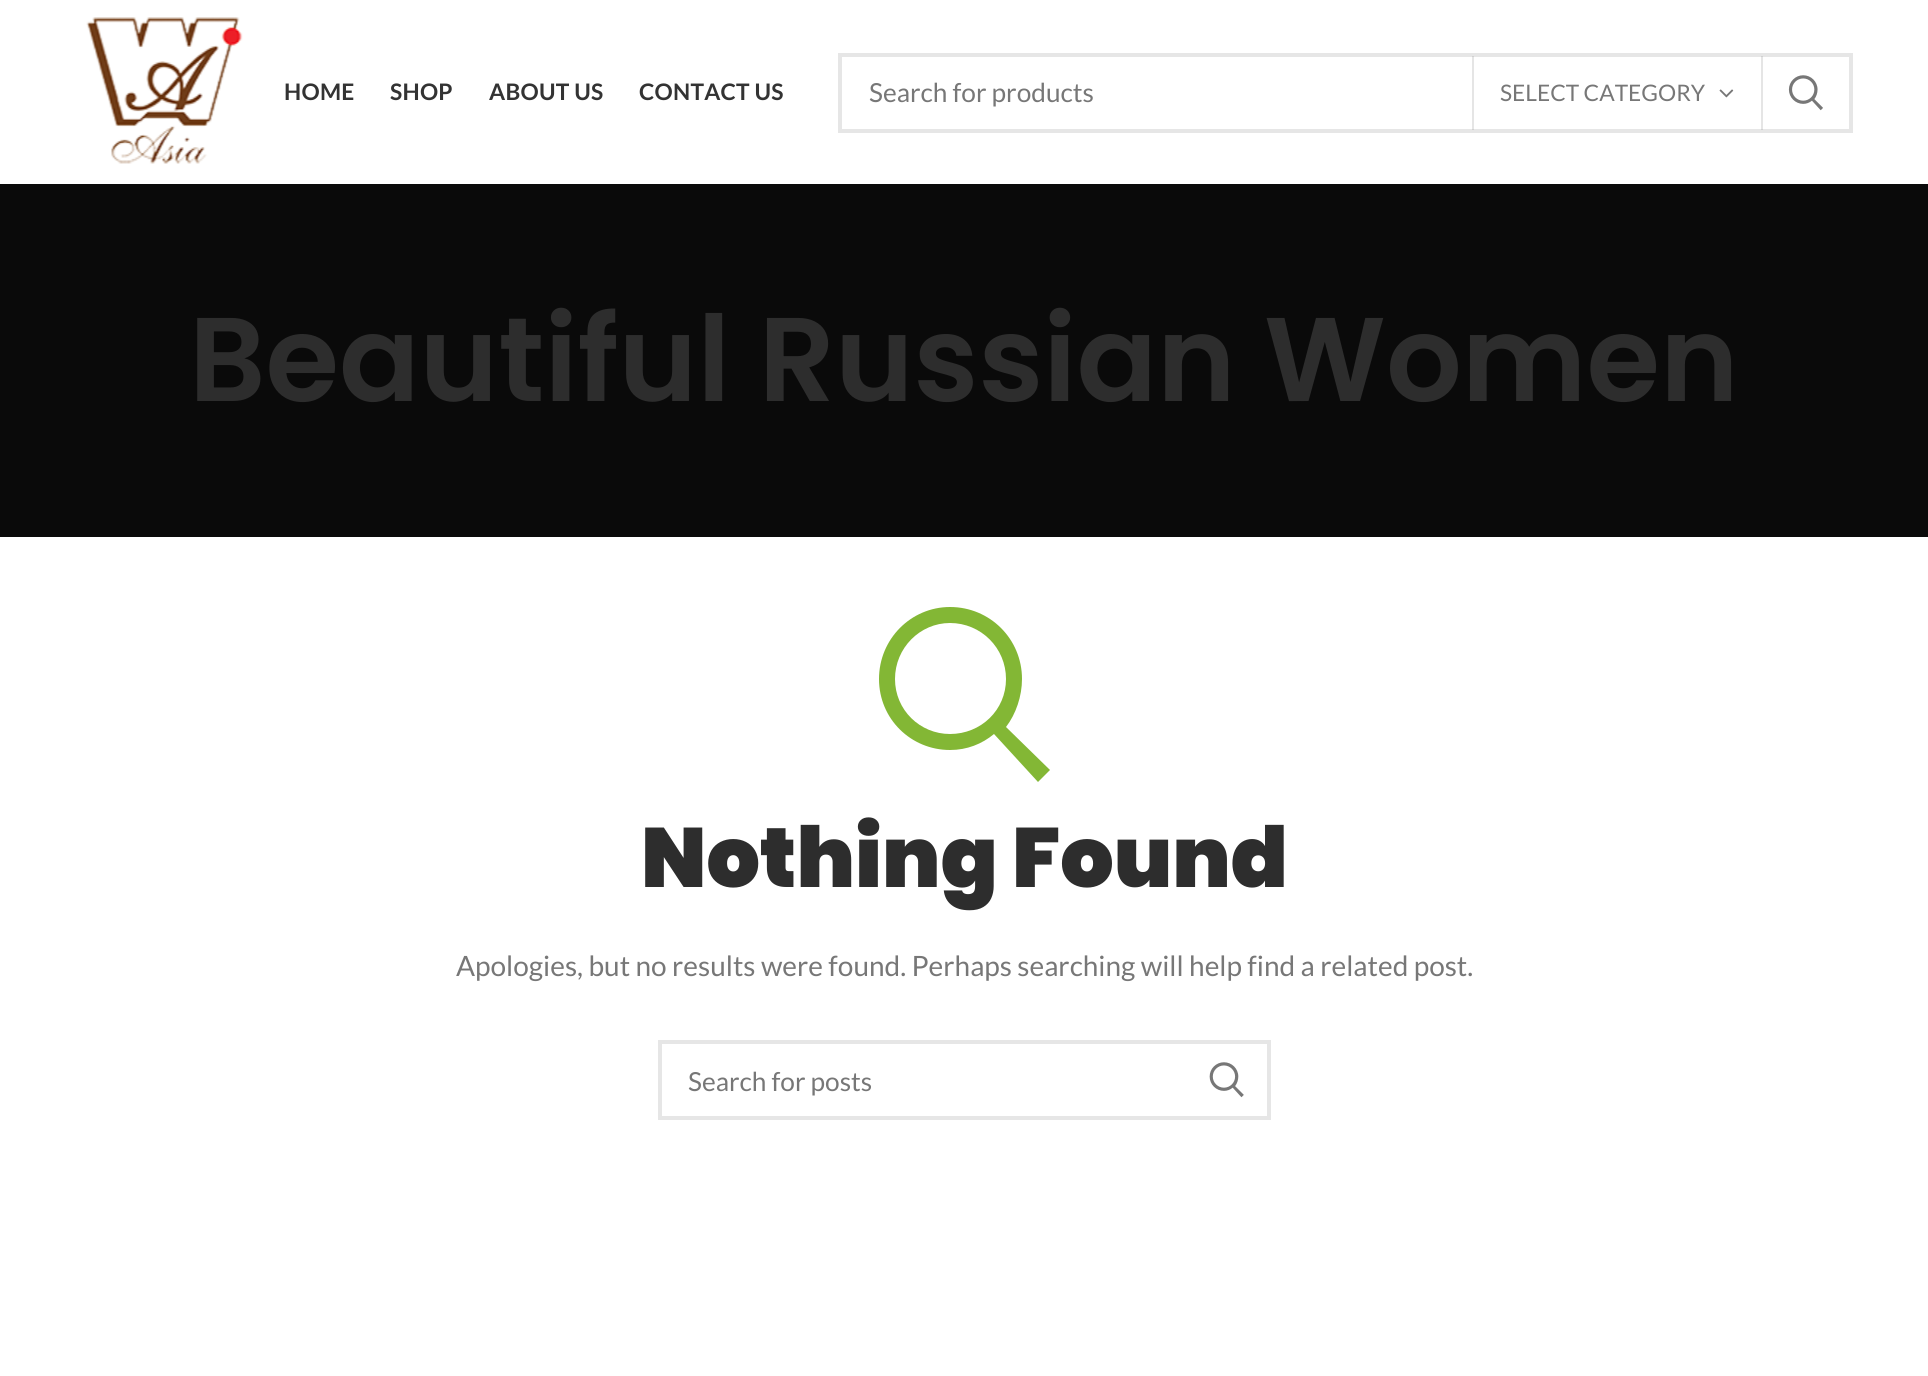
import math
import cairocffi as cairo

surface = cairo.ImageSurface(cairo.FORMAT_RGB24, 1928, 1376)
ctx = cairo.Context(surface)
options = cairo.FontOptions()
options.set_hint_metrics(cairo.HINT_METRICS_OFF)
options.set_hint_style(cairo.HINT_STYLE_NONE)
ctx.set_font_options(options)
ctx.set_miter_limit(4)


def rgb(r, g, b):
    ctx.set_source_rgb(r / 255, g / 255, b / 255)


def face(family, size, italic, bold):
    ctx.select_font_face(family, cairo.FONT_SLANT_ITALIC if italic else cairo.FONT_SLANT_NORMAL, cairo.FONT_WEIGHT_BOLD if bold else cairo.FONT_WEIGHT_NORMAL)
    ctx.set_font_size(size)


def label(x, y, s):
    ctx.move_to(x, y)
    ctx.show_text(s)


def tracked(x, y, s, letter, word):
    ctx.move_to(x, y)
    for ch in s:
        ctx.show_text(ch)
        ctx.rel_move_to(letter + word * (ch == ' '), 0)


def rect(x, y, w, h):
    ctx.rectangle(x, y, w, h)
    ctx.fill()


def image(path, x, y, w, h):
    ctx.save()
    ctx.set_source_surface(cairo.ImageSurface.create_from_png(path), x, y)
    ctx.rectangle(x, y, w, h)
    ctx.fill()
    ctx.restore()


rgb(255, 255, 255)
ctx.paint()
image('image0.png', 86, 17, 157, 147)
face('Lato', 22.75, 0, 1)
rgb(51, 51, 51)
tracked(284, 100, 'HOME', 0.25, 0)
tracked(390, 100, 'SHOP', 0.25, 0)
tracked(489, 100, 'ABOUT US', 0.25, 0)
tracked(639, 100, 'CONTACT US', 0.25, 0)
ctx.rectangle(840, 55, 1011, 76)
rgb(230, 230, 230)
ctx.set_line_width(4)
ctx.stroke()
face('Lato', 26.25, 0, 0)
rgb(119, 119, 119)
label(869, 102, 'Search for products')
ctx.set_source_rgba(0.506, 0.506, 0.506, 0.2)
rect(1761, 56, 2, 74)
rect(1472, 56, 2, 74)
face('Lato', 22.75, 0, 0)
rgb(119, 119, 119)
label(1500, 101, 'SELECT CATEGORY')
image('image1.png', 1719, 89, 15, 9)
image('image2.png', 1788, 75, 35, 36)
rgb(10, 10, 10)
rect(0, 184, 1928, 353)
face('Poppins SemiBold', 119, 0, 0)
rgb(45, 45, 45)
label(189, 401, 'Beautiful Russian Women')
rgb(131, 183, 53)
ctx.new_path()
ctx.move_to(1006, 727)
ctx.curve_to(1016, 714, 1022, 696, 1022, 679)
ctx.curve_to(1022, 639, 990, 607, 950, 607)
ctx.curve_to(911, 607, 879, 639, 879, 679)
ctx.curve_to(879, 719, 911, 750, 950, 750)
ctx.curve_to(967, 750, 982, 744, 994, 734)
ctx.line_to(1038, 782)
ctx.line_to(1050, 770)
ctx.close_path()
ctx.move_to(950, 734)
ctx.curve_to(920, 734, 895, 710, 895, 679)
ctx.curve_to(895, 648, 920, 623, 950, 623)
ctx.curve_to(981, 623, 1006, 648, 1006, 679)
ctx.curve_to(1006, 710, 981, 734, 950, 734)
ctx.close_path()
ctx.fill()
face('Poppins Black', 84, 0, 0)
rgb(45, 45, 45)
label(641, 887, 'Nothing Found')
face('Lato', 28, 0, 0)
rgb(119, 119, 119)
label(456, 976, 'Apologies, but no results were found. Perhaps searching will help find a related post.')
ctx.rectangle(660, 1042, 609, 76)
rgb(230, 230, 230)
ctx.stroke()
face('Lato', 26.25, 0, 0)
rgb(119, 119, 119)
label(688, 1091, 'Search for posts')
image('image3.png', 1209, 1062, 35, 36)
surface.write_to_png('render.png')
